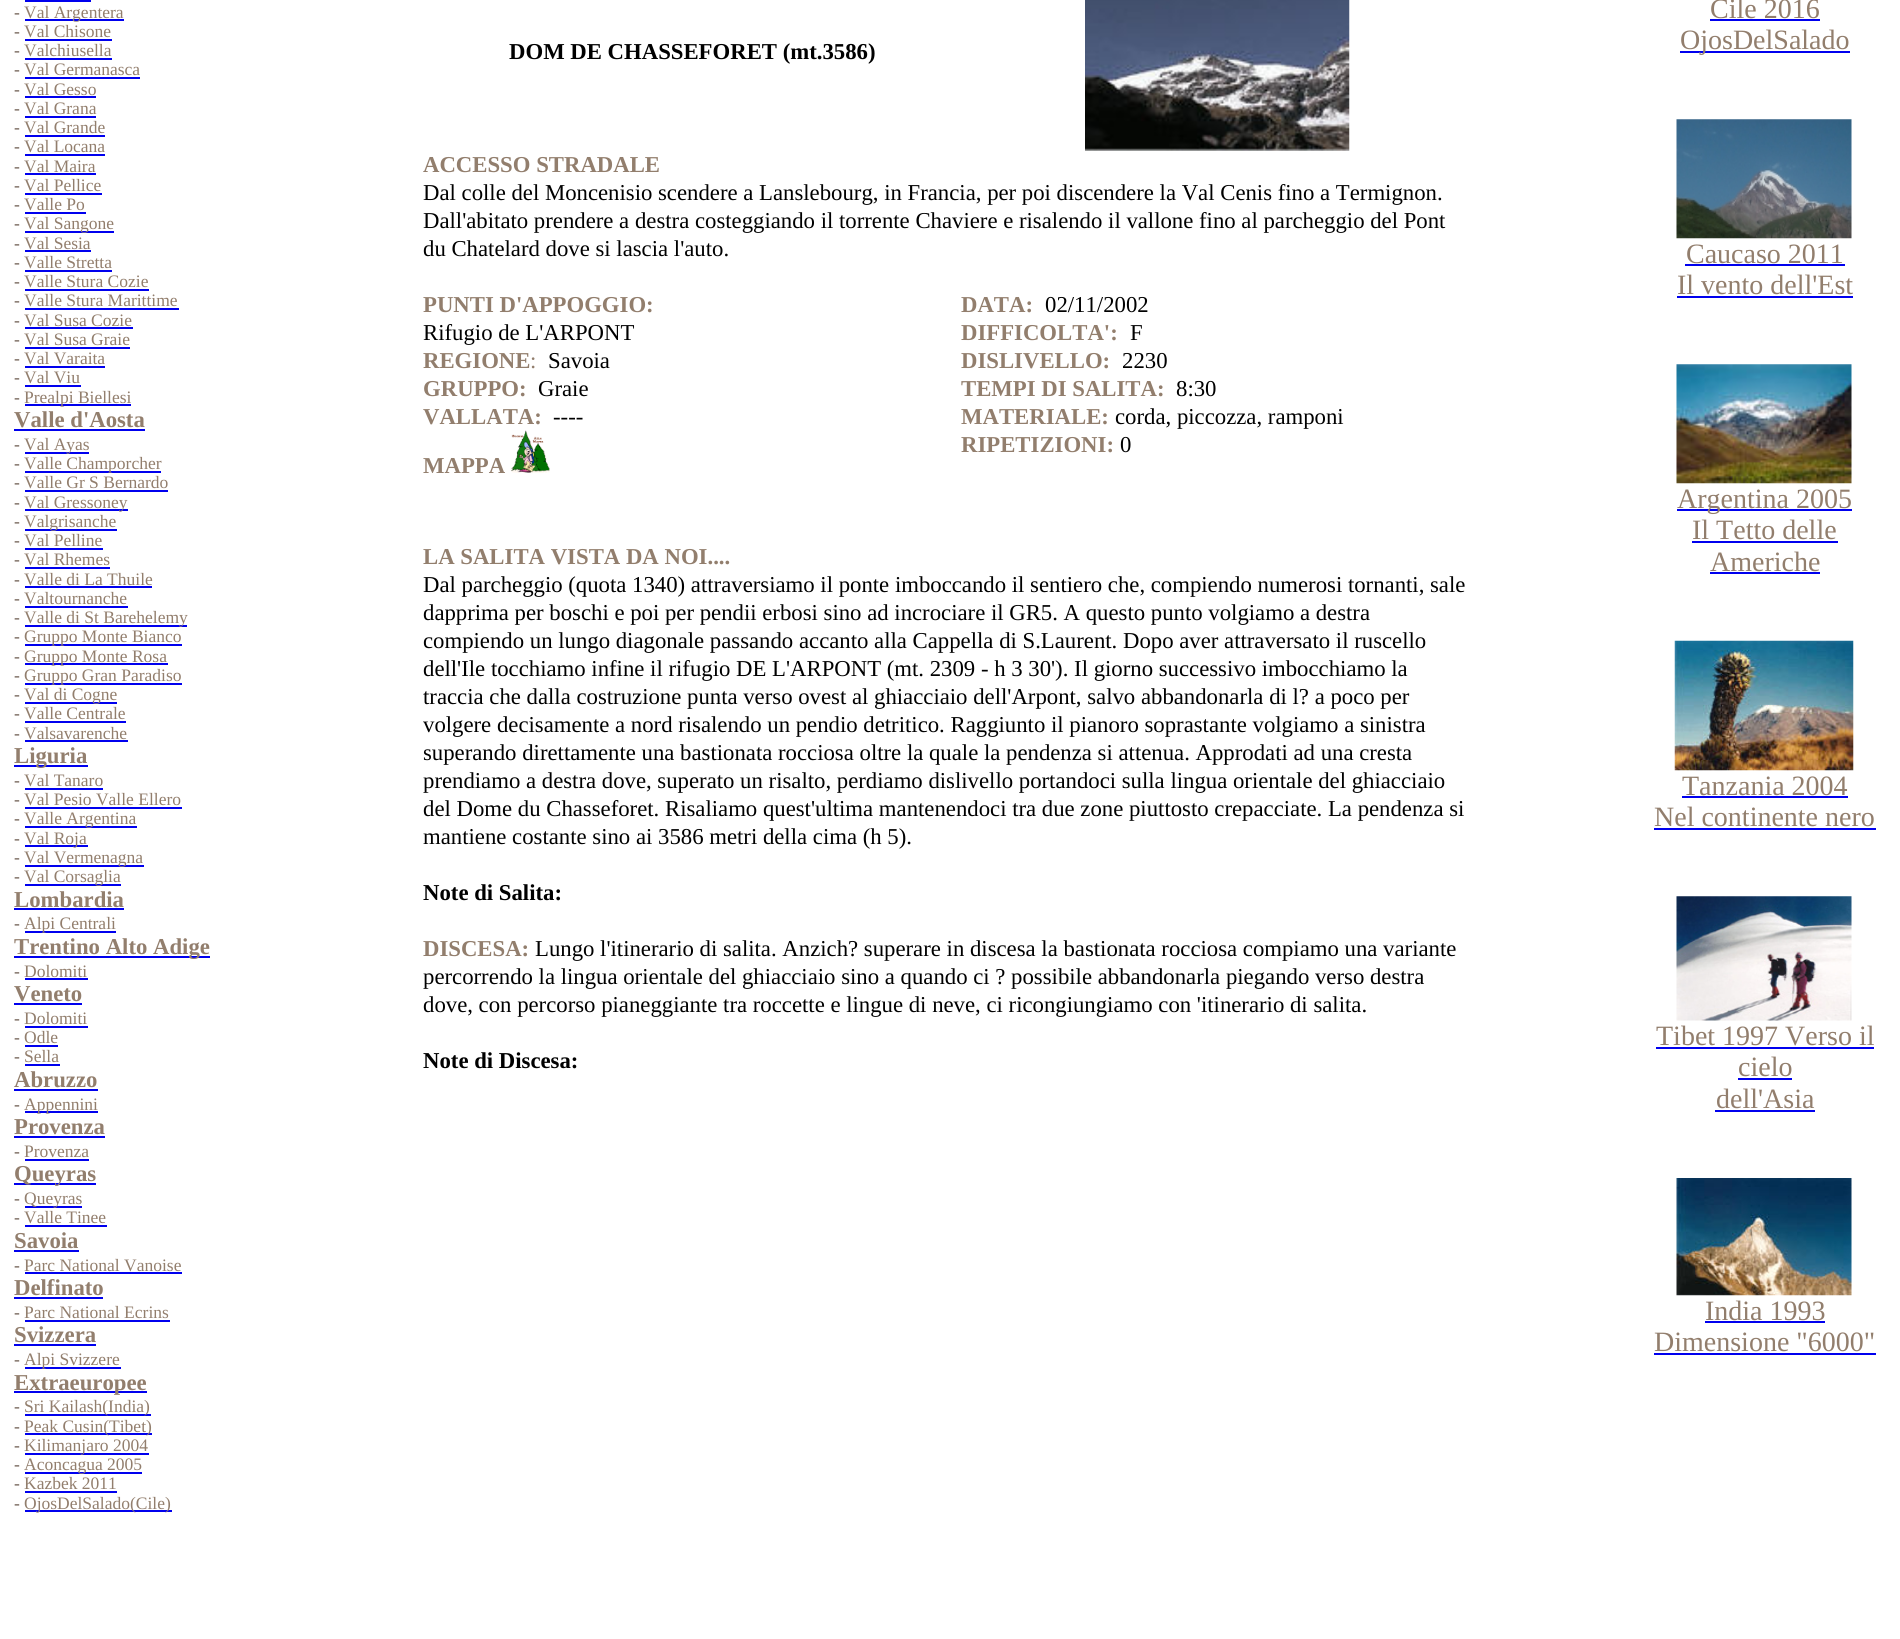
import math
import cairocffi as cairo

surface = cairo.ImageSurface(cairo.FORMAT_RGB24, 1900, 1639)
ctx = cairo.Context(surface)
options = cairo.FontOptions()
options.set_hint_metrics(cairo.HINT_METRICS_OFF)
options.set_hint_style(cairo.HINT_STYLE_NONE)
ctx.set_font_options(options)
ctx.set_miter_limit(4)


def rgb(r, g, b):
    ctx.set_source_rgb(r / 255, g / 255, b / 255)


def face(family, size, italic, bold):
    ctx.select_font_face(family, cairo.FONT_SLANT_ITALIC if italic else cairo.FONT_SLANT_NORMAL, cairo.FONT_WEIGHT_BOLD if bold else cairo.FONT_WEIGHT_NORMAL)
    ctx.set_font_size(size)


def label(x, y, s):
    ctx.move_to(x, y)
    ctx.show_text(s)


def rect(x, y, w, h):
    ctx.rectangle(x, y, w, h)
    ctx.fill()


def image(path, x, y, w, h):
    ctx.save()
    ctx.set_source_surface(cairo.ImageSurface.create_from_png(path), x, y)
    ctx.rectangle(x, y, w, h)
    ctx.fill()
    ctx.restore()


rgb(255, 255, 255)
ctx.paint()
face('Liberation Serif', 17.5, 0, 0)
rgb(112, 96, 84)
label(14, 18, '-')
rgb(0, 0, 238)
rect(25, 19, 99, 2)
rgb(146, 126, 109)
label(24, 18, 'Val Argentera')
rgb(0, 0, 238)
rect(25, 0, 66, 2)
rgb(112, 96, 84)
label(14, 37, '-')
rgb(146, 126, 109)
label(24, 37, 'Val Chisone')
rgb(0, 0, 238)
rect(25, 39, 87, 2)
rgb(112, 96, 84)
label(14, 56, '-')
rgb(146, 126, 109)
label(24, 56, 'Valchiusella')
rgb(0, 0, 238)
rect(25, 58, 87, 2)
rgb(112, 96, 84)
label(14, 75, '-')
rgb(146, 126, 109)
label(24, 75, 'Val Germanasca')
rgb(0, 0, 238)
rect(25, 77, 115, 2)
rgb(112, 96, 84)
label(14, 95, '-')
rgb(146, 126, 109)
label(24, 95, 'Val Gesso')
rgb(0, 0, 238)
rect(25, 96, 71, 2)
rgb(112, 96, 84)
label(14, 114, '-')
rgb(146, 126, 109)
label(24, 114, 'Val Grana')
rgb(0, 0, 238)
rect(25, 116, 71, 2)
rgb(112, 96, 84)
label(14, 133, '-')
rgb(146, 126, 109)
label(24, 133, 'Val Grande')
rgb(0, 0, 238)
rect(25, 135, 80, 2)
rgb(112, 96, 84)
label(14, 152, '-')
rgb(146, 126, 109)
label(24, 152, 'Val Locana')
rgb(0, 0, 238)
rect(25, 154, 80, 2)
rgb(112, 96, 84)
label(14, 172, '-')
rgb(146, 126, 109)
label(24, 172, 'Val Maira')
rgb(0, 0, 238)
rect(25, 173, 71, 2)
rgb(112, 96, 84)
label(14, 191, '-')
rgb(146, 126, 109)
label(24, 191, 'Val Pellice')
rgb(0, 0, 238)
rect(25, 193, 77, 2)
rgb(112, 96, 84)
label(14, 210, '-')
rgb(146, 126, 109)
label(24, 210, 'Valle Po')
rgb(0, 0, 238)
rect(25, 212, 61, 2)
rgb(112, 96, 84)
label(14, 229, '-')
rgb(0, 0, 238)
rect(25, 231, 89, 2)
rgb(146, 126, 109)
label(24, 229, 'Val Sangone')
rgb(112, 96, 84)
label(14, 249, '-')
rgb(146, 126, 109)
label(24, 249, 'Val Sesia')
rgb(0, 0, 238)
rect(25, 250, 66, 2)
rgb(112, 96, 84)
label(14, 268, '-')
rgb(146, 126, 109)
label(24, 268, 'Valle Stretta')
rgb(0, 0, 238)
rect(25, 270, 87, 2)
rgb(112, 96, 84)
label(14, 287, '-')
rgb(146, 126, 109)
label(24, 287, 'Valle Stura Cozie')
rgb(0, 0, 238)
rect(25, 289, 124, 2)
rgb(112, 96, 84)
label(14, 306, '-')
rgb(146, 126, 109)
label(24, 306, 'Valle Stura Marittime')
rgb(0, 0, 238)
rect(25, 308, 154, 2)
rgb(112, 96, 84)
label(14, 326, '-')
rgb(146, 126, 109)
label(24, 326, 'Val Susa Cozie')
rgb(0, 0, 238)
rect(25, 327, 108, 2)
rgb(112, 96, 84)
label(14, 345, '-')
rgb(146, 126, 109)
label(24, 345, 'Val Susa Graie')
rgb(0, 0, 238)
rect(25, 347, 105, 2)
rgb(112, 96, 84)
label(14, 364, '-')
rgb(146, 126, 109)
label(24, 364, 'Val Varaita')
rgb(0, 0, 238)
rect(25, 366, 80, 2)
rgb(112, 96, 84)
label(14, 383, '-')
rgb(146, 126, 109)
label(24, 383, 'Val Viu')
rgb(0, 0, 238)
rect(25, 385, 56, 2)
rgb(112, 96, 84)
label(14, 403, '-')
rgb(0, 0, 238)
rect(25, 404, 106, 2)
rgb(146, 126, 109)
label(24, 403, 'Prealpi Biellesi')
face('Liberation Serif', 22.75, 0, 1)
label(14, 427, 'Valle d\'Aosta')
rgb(0, 0, 238)
rect(14, 429, 131, 2)
face('Liberation Serif', 17.5, 0, 0)
rgb(112, 96, 84)
label(14, 450, '-')
rgb(0, 0, 238)
rect(25, 452, 64, 2)
rgb(146, 126, 109)
label(24, 450, 'Val Ayas')
rgb(112, 96, 84)
label(14, 469, '-')
rgb(0, 0, 238)
rect(25, 471, 136, 2)
rgb(146, 126, 109)
label(24, 469, 'Valle Champorcher')
rgb(112, 96, 84)
label(14, 488, '-')
rgb(146, 126, 109)
label(24, 488, 'Valle Gr S Bernardo')
rgb(0, 0, 238)
rect(25, 490, 143, 2)
rgb(112, 96, 84)
label(14, 508, '-')
rgb(0, 0, 238)
rect(25, 509, 103, 2)
rgb(146, 126, 109)
label(24, 508, 'Val Gressoney')
rgb(112, 96, 84)
label(14, 527, '-')
rgb(0, 0, 238)
rect(25, 529, 92, 2)
rgb(146, 126, 109)
label(24, 527, 'Valgrisanche')
rgb(112, 96, 84)
label(14, 546, '-')
rgb(146, 126, 109)
label(24, 546, 'Val Pelline')
rgb(0, 0, 238)
rect(25, 548, 78, 2)
rgb(112, 96, 84)
label(14, 565, '-')
rgb(146, 126, 109)
label(24, 565, 'Val Rhemes')
rgb(0, 0, 238)
rect(25, 567, 85, 2)
rgb(112, 96, 84)
label(14, 585, '-')
rgb(146, 126, 109)
label(24, 585, 'Valle di La Thuile')
rgb(0, 0, 238)
rect(25, 586, 127, 2)
rgb(112, 96, 84)
label(14, 604, '-')
rgb(146, 126, 109)
label(24, 604, 'Valtournanche')
rgb(0, 0, 238)
rect(25, 606, 103, 2)
rgb(112, 96, 84)
label(14, 623, '-')
rgb(0, 0, 238)
rect(25, 625, 162, 2)
rgb(146, 126, 109)
label(24, 623, 'Valle di St Barehelemy')
rgb(112, 96, 84)
label(14, 642, '-')
rgb(0, 0, 238)
rect(25, 644, 157, 2)
rgb(146, 126, 109)
label(24, 642, 'Gruppo Monte Bianco')
rgb(112, 96, 84)
label(14, 662, '-')
rgb(0, 0, 238)
rect(25, 663, 143, 2)
rgb(146, 126, 109)
label(24, 662, 'Gruppo Monte Rosa')
rgb(112, 96, 84)
label(14, 681, '-')
rgb(0, 0, 238)
rect(25, 683, 157, 2)
rgb(146, 126, 109)
label(24, 681, 'Gruppo Gran Paradiso')
rgb(112, 96, 84)
label(14, 700, '-')
rgb(0, 0, 238)
rect(25, 702, 92, 2)
rgb(146, 126, 109)
label(24, 700, 'Val di Cogne')
rgb(112, 96, 84)
label(14, 719, '-')
rgb(146, 126, 109)
label(24, 719, 'Valle Centrale')
rgb(0, 0, 238)
rect(25, 721, 101, 2)
rgb(112, 96, 84)
label(14, 739, '-')
rgb(146, 126, 109)
label(24, 739, 'Valsavarenche')
rgb(0, 0, 238)
rect(25, 740, 103, 2)
rect(14, 765, 74, 2)
face('Liberation Serif', 22.75, 0, 1)
rgb(146, 126, 109)
label(14, 763, 'Liguria')
face('Liberation Serif', 17.5, 0, 0)
rgb(112, 96, 84)
label(14, 786, '-')
rgb(146, 126, 109)
label(24, 786, 'Val Tanaro')
rgb(0, 0, 238)
rect(25, 788, 78, 2)
rgb(112, 96, 84)
label(14, 805, '-')
rgb(146, 126, 109)
label(24, 805, 'Val Pesio Valle Ellero')
rgb(0, 0, 238)
rect(25, 807, 157, 2)
rgb(112, 96, 84)
label(14, 824, '-')
rgb(0, 0, 238)
rect(25, 826, 112, 2)
rgb(146, 126, 109)
label(24, 824, 'Valle Argentina')
rgb(112, 96, 84)
label(14, 844, '-')
rgb(0, 0, 238)
rect(25, 845, 63, 2)
rgb(146, 126, 109)
label(24, 844, 'Val Roja')
rgb(112, 96, 84)
label(14, 863, '-')
rgb(0, 0, 238)
rect(25, 865, 119, 2)
rgb(146, 126, 109)
label(24, 863, 'Val Vermenagna')
rgb(112, 96, 84)
label(14, 882, '-')
rgb(0, 0, 238)
rect(25, 884, 96, 2)
rgb(146, 126, 109)
label(24, 882, 'Val Corsaglia')
face('Liberation Serif', 22.75, 0, 1)
label(14, 907, 'Lombardia')
rgb(0, 0, 238)
rect(14, 908, 110, 2)
face('Liberation Serif', 17.5, 0, 0)
rgb(112, 96, 84)
label(14, 929, '-')
rgb(0, 0, 238)
rect(25, 931, 91, 2)
rgb(146, 126, 109)
label(24, 929, 'Alpi Centrali')
rgb(0, 0, 238)
rect(14, 956, 196, 2)
face('Liberation Serif', 22.75, 0, 1)
rgb(146, 126, 109)
label(14, 954, 'Trentino Alto Adige')
face('Liberation Serif', 17.5, 0, 0)
rgb(112, 96, 84)
label(14, 977, '-')
rgb(146, 126, 109)
label(24, 977, 'Dolomiti')
rgb(0, 0, 238)
rect(25, 978, 63, 2)
face('Liberation Serif', 22.75, 0, 1)
rgb(146, 126, 109)
label(14, 1001, 'Veneto')
rgb(0, 0, 238)
rect(14, 1003, 68, 2)
face('Liberation Serif', 17.5, 0, 0)
rgb(112, 96, 84)
label(14, 1024, '-')
rgb(146, 126, 109)
label(24, 1024, 'Dolomiti')
rgb(0, 0, 238)
rect(25, 1026, 63, 2)
rgb(112, 96, 84)
label(14, 1043, '-')
rgb(146, 126, 109)
label(24, 1043, 'Odle')
rgb(0, 0, 238)
rect(25, 1045, 33, 2)
rgb(112, 96, 84)
label(14, 1062, '-')
rgb(146, 126, 109)
label(24, 1062, 'Sella')
rgb(0, 0, 238)
rect(25, 1064, 35, 2)
face('Liberation Serif', 22.75, 0, 1)
rgb(146, 126, 109)
label(14, 1087, 'Abruzzo')
rgb(0, 0, 238)
rect(14, 1089, 84, 2)
face('Liberation Serif', 17.5, 0, 0)
rgb(112, 96, 84)
label(14, 1110, '-')
rgb(0, 0, 238)
rect(25, 1111, 73, 2)
rgb(146, 126, 109)
label(24, 1110, 'Appennini')
face('Liberation Serif', 22.75, 0, 1)
label(14, 1134, 'Provenza')
rgb(0, 0, 238)
rect(14, 1136, 91, 2)
face('Liberation Serif', 17.5, 0, 0)
rgb(112, 96, 84)
label(14, 1157, '-')
rgb(146, 126, 109)
label(24, 1157, 'Provenza')
rgb(0, 0, 238)
rect(25, 1159, 64, 2)
rect(14, 1183, 82, 2)
face('Liberation Serif', 22.75, 0, 1)
rgb(146, 126, 109)
label(14, 1181, 'Queyras')
face('Liberation Serif', 17.5, 0, 0)
rgb(112, 96, 84)
label(14, 1204, '-')
rgb(0, 0, 238)
rect(25, 1206, 57, 2)
rgb(146, 126, 109)
label(24, 1204, 'Queyras')
rgb(112, 96, 84)
label(14, 1223, '-')
rgb(146, 126, 109)
label(24, 1223, 'Valle Tinee')
rgb(0, 0, 238)
rect(25, 1225, 82, 2)
face('Liberation Serif', 22.75, 0, 1)
rgb(146, 126, 109)
label(14, 1248, 'Savoia')
rgb(0, 0, 238)
rect(14, 1250, 65, 2)
face('Liberation Serif', 17.5, 0, 0)
rgb(112, 96, 84)
label(14, 1271, '-')
rgb(146, 126, 109)
label(24, 1271, 'Parc National Vanoise')
rgb(0, 0, 238)
rect(25, 1272, 157, 2)
face('Liberation Serif', 22.75, 0, 1)
rgb(146, 126, 109)
label(14, 1295, 'Delfinato')
rgb(0, 0, 238)
rect(14, 1297, 89, 2)
face('Liberation Serif', 17.5, 0, 0)
rgb(112, 96, 84)
label(14, 1318, '-')
rgb(146, 126, 109)
label(24, 1318, 'Parc National Ecrins')
rgb(0, 0, 238)
rect(25, 1320, 145, 2)
face('Liberation Serif', 22.75, 0, 1)
rgb(146, 126, 109)
label(14, 1342, 'Svizzera')
rgb(0, 0, 238)
rect(14, 1344, 82, 2)
face('Liberation Serif', 17.5, 0, 0)
rgb(112, 96, 84)
label(14, 1365, '-')
rgb(0, 0, 238)
rect(25, 1367, 96, 2)
rgb(146, 126, 109)
label(24, 1365, 'Alpi Svizzere')
rgb(0, 0, 238)
rect(14, 1391, 133, 2)
face('Liberation Serif', 22.75, 0, 1)
rgb(146, 126, 109)
label(14, 1390, 'Extraeuropee')
face('Liberation Serif', 17.5, 0, 0)
rgb(112, 96, 84)
label(14, 1412, '-')
rgb(0, 0, 238)
rect(25, 1414, 126, 2)
rgb(146, 126, 109)
label(24, 1412, 'Sri Kailash(India)')
rgb(112, 96, 84)
label(14, 1432, '-')
rgb(0, 0, 238)
rect(25, 1433, 127, 2)
rgb(146, 126, 109)
label(24, 1432, 'Peak Cusin(Tibet)')
rgb(112, 96, 84)
label(14, 1451, '-')
rgb(0, 0, 238)
rect(25, 1453, 124, 2)
rgb(146, 126, 109)
label(24, 1451, 'Kilimanjaro 2004')
rgb(112, 96, 84)
label(14, 1470, '-')
rgb(0, 0, 238)
rect(25, 1472, 117, 2)
rgb(146, 126, 109)
label(24, 1470, 'Aconcagua 2005')
rgb(112, 96, 84)
label(14, 1489, '-')
rgb(146, 126, 109)
label(24, 1489, 'Kazbek 2011')
rgb(0, 0, 238)
rect(25, 1491, 92, 2)
rgb(112, 96, 84)
label(14, 1509, '-')
rgb(0, 0, 238)
rect(25, 1510, 147, 2)
rgb(146, 126, 109)
label(24, 1509, 'OjosDelSalado(Cile)')
face('Liberation Serif', 22.75, 0, 1)
rgb(0, 0, 0)
label(509, 59, 'DOM DE CHASSEFORET (mt.3586)')
image('image0.png', 1085, 0, 265, 151)
rgb(146, 126, 109)
label(423, 172, 'ACCESSO STRADALE')
face('Liberation Serif', 22.75, 0, 0)
rgb(0, 0, 0)
label(423, 200, 'Dal colle del Moncenisio scendere a Lanslebourg, in Francia, per poi discendere la Val Cenis fino a Termignon.')
label(423, 228, 'Dall\'abitato prendere a destra costeggiando il torrente Chaviere e risalendo il vallone fino al parcheggio del Pont')
label(423, 256, 'du Chatelard dove si lascia l\'auto.')
face('Liberation Serif', 22.75, 0, 1)
rgb(146, 126, 109)
label(423, 312, 'PUNTI D\'APPOGGIO:')
face('Liberation Serif', 22.75, 0, 0)
rgb(0, 0, 0)
label(423, 340, 'Rifugio de L\'ARPONT')
face('Liberation Serif', 22.75, 0, 1)
rgb(146, 126, 109)
label(423, 368, 'REGIONE')
face('Liberation Serif', 22.75, 0, 0)
label(530, 368, ':')
rgb(0, 0, 0)
label(548, 368, 'Savoia')
face('Liberation Serif', 22.75, 0, 1)
rgb(146, 126, 109)
label(423, 396, 'GRUPPO:')
face('Liberation Serif', 22.75, 0, 0)
rgb(0, 0, 0)
label(538, 396, 'Graie')
face('Liberation Serif', 22.75, 0, 1)
rgb(146, 126, 109)
label(423, 424, 'VALLATA:')
face('Liberation Serif', 22.75, 0, 0)
rgb(0, 0, 0)
label(553, 424, '----')
face('Liberation Serif', 22.75, 0, 1)
rgb(146, 126, 109)
label(423, 473, 'MAPPA')
image('image1.png', 511, 430, 39, 43)
label(961, 312, 'DATA:')
face('Liberation Serif', 22.75, 0, 0)
rgb(0, 0, 0)
label(1045, 312, '02/11/2002')
face('Liberation Serif', 22.75, 0, 1)
rgb(146, 126, 109)
label(961, 340, 'DIFFICOLTA\':')
face('Liberation Serif', 22.75, 0, 0)
rgb(0, 0, 0)
label(1130, 340, 'F')
face('Liberation Serif', 22.75, 0, 1)
rgb(146, 126, 109)
label(961, 368, 'DISLIVELLO:')
face('Liberation Serif', 22.75, 0, 0)
rgb(0, 0, 0)
label(1122, 368, '2230')
face('Liberation Serif', 22.75, 0, 1)
rgb(146, 126, 109)
label(961, 396, 'TEMPI DI SALITA:')
face('Liberation Serif', 22.75, 0, 0)
rgb(0, 0, 0)
label(1176, 396, '8:30')
face('Liberation Serif', 22.75, 0, 1)
rgb(146, 126, 109)
label(961, 424, 'MATERIALE:')
face('Liberation Serif', 22.75, 0, 0)
rgb(0, 0, 0)
label(1115, 424, 'corda, piccozza, ramponi')
face('Liberation Serif', 22.75, 0, 1)
rgb(146, 126, 109)
label(961, 452, 'RIPETIZIONI:')
face('Liberation Serif', 22.75, 0, 0)
rgb(0, 0, 0)
label(1120, 452, '0')
face('Liberation Serif', 22.75, 0, 1)
rgb(146, 126, 109)
label(423, 564, 'LA SALITA VISTA DA NOI....')
face('Liberation Serif', 22.75, 0, 0)
rgb(0, 0, 0)
label(423, 592, 'Dal parcheggio (quota 1340) attraversiamo il ponte imboccando il sentiero che, compiendo numerosi tornanti, sale')
label(423, 620, 'dapprima per boschi e poi per pendii erbosi sino ad incrociare il GR5. A questo punto volgiamo a destra')
label(423, 648, 'compiendo un lungo diagonale passando accanto alla Cappella di S.Laurent. Dopo aver attraversato il ruscello')
label(423, 676, 'dell\'Ile tocchiamo infine il rifugio DE L\'ARPONT (mt. 2309 - h 3 30\'). Il giorno successivo imbocchiamo la')
label(423, 704, 'traccia che dalla costruzione punta verso ovest al ghiacciaio dell\'Arpont, salvo abbandonarla di l? a poco per')
label(423, 732, 'volgere decisamente a nord risalendo un pendio detritico. Raggiunto il pianoro soprastante volgiamo a sinistra')
label(423, 760, 'superando direttamente una bastionata rocciosa oltre la quale la pendenza si attenua. Approdati ad una cresta')
label(423, 788, 'prendiamo a destra dove, superato un risalto, perdiamo dislivello portandoci sulla lingua orientale del ghiacciaio')
label(423, 816, 'del Dome du Chasseforet. Risaliamo quest\'ultima mantenendoci tra due zone piuttosto crepacciate. La pendenza si')
label(423, 844, 'mantiene costante sino ai 3586 metri della cima (h 5).')
face('Liberation Serif', 22.75, 0, 1)
label(423, 900, 'Note di Salita:')
rgb(146, 126, 109)
label(423, 956, 'DISCESA:')
face('Liberation Serif', 22.75, 0, 0)
rgb(0, 0, 0)
label(535, 956, 'Lungo l\'itinerario di salita. Anzich? superare in discesa la bastionata rocciosa compiamo una variante')
label(423, 984, 'percorrendo la lingua orientale del ghiacciaio sino a quando ci ? possibile abbandonarla piegando verso destra')
label(423, 1012, 'dove, con percorso pianeggiante tra roccette e lingue di neve, ci ricongiungiamo con \'itinerario di salita.')
face('Liberation Serif', 22.75, 0, 1)
label(423, 1068, 'Note di Discesa:')
face('Liberation Serif', 28, 0, 0)
rgb(146, 126, 109)
label(1710, 18, 'Cile 2016')
rgb(0, 0, 238)
rect(1710, 19, 110, 2)
rect(1680, 51, 170, 2)
rgb(146, 126, 109)
label(1680, 49, 'OjosDelSalado')
image('image2.png', 1676, 119, 176, 120)
label(1686, 263, 'Caucaso 2011')
rgb(0, 0, 238)
rect(1685, 264, 160, 2)
rgb(146, 126, 109)
label(1677, 294, 'Il vento dell\'Est')
rgb(0, 0, 238)
rect(1677, 296, 176, 2)
image('image3.png', 1676, 364, 176, 120)
rect(1677, 509, 175, 2)
rgb(146, 126, 109)
label(1677, 508, 'Argentina 2005')
label(1692, 539, 'Il Tetto delle')
rgb(0, 0, 238)
rect(1692, 541, 146, 2)
rgb(146, 126, 109)
label(1710, 571, 'Americhe')
rgb(0, 0, 238)
rect(1710, 572, 110, 2)
image('image4.png', 1674, 640, 180, 131)
rgb(146, 126, 109)
label(1682, 795, 'Tanzania 2004')
rgb(0, 0, 238)
rect(1682, 796, 166, 2)
rgb(146, 126, 109)
label(1654, 826, 'Nel continente nero')
rgb(0, 0, 238)
rect(1654, 828, 222, 2)
image('image5.png', 1676, 896, 176, 125)
rgb(146, 126, 109)
label(1656, 1045, 'Tibet 1997 Verso il')
rgb(0, 0, 238)
rect(1656, 1047, 218, 2)
rgb(146, 126, 109)
label(1738, 1076, 'cielo')
rgb(0, 0, 238)
rect(1738, 1078, 54, 2)
rgb(146, 126, 109)
label(1716, 1108, 'dell\'Asia')
rgb(0, 0, 238)
rect(1715, 1110, 100, 2)
image('image6.png', 1676, 1178, 176, 118)
rgb(146, 126, 109)
label(1705, 1320, 'India 1993')
rgb(0, 0, 238)
rect(1705, 1321, 120, 2)
rgb(146, 126, 109)
label(1654, 1351, 'Dimensione "6000"')
rgb(0, 0, 238)
rect(1654, 1353, 222, 2)
surface.write_to_png('render.png')
